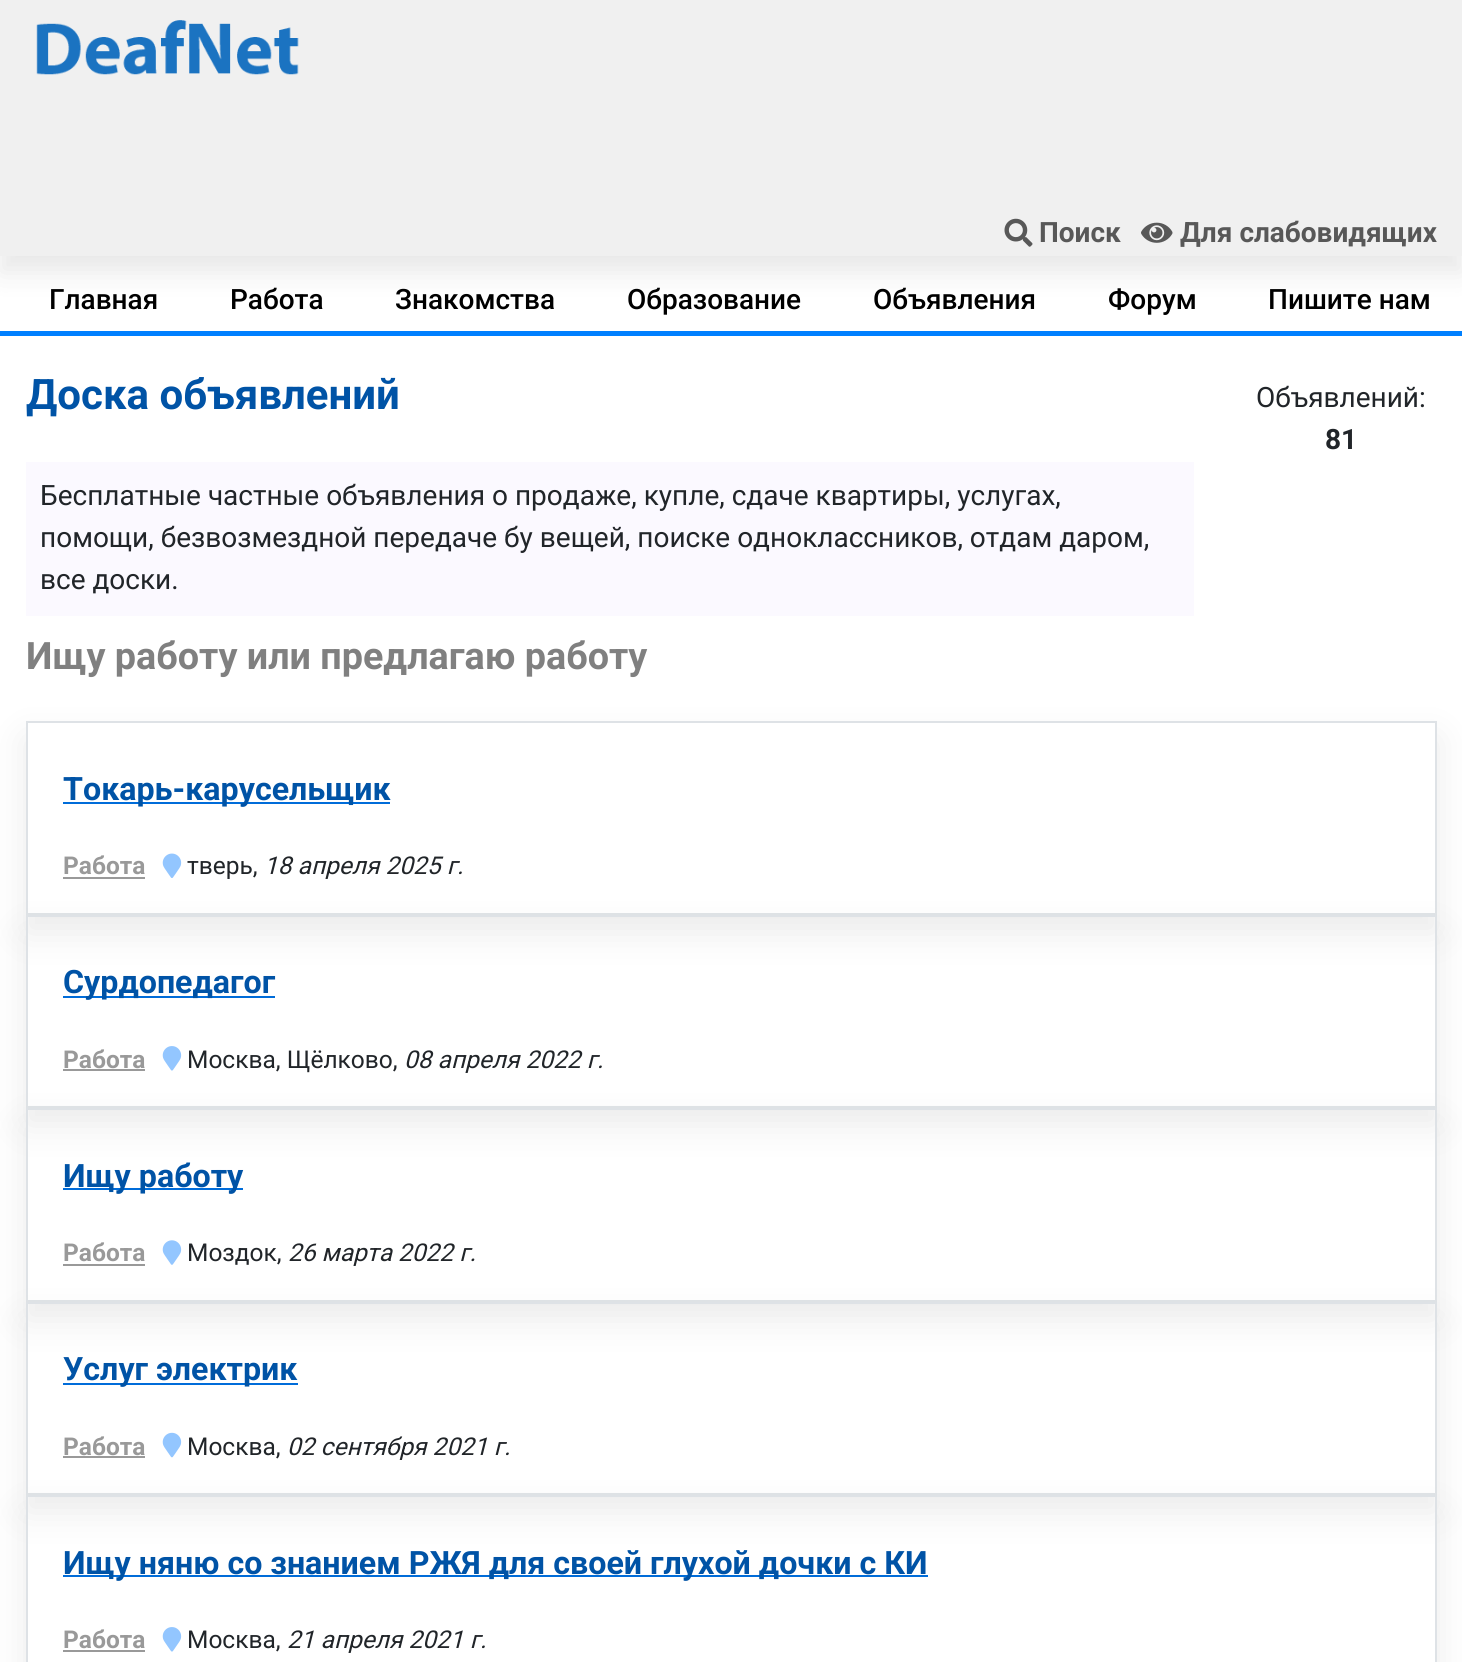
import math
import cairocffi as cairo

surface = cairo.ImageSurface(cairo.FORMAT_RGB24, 1462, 1662)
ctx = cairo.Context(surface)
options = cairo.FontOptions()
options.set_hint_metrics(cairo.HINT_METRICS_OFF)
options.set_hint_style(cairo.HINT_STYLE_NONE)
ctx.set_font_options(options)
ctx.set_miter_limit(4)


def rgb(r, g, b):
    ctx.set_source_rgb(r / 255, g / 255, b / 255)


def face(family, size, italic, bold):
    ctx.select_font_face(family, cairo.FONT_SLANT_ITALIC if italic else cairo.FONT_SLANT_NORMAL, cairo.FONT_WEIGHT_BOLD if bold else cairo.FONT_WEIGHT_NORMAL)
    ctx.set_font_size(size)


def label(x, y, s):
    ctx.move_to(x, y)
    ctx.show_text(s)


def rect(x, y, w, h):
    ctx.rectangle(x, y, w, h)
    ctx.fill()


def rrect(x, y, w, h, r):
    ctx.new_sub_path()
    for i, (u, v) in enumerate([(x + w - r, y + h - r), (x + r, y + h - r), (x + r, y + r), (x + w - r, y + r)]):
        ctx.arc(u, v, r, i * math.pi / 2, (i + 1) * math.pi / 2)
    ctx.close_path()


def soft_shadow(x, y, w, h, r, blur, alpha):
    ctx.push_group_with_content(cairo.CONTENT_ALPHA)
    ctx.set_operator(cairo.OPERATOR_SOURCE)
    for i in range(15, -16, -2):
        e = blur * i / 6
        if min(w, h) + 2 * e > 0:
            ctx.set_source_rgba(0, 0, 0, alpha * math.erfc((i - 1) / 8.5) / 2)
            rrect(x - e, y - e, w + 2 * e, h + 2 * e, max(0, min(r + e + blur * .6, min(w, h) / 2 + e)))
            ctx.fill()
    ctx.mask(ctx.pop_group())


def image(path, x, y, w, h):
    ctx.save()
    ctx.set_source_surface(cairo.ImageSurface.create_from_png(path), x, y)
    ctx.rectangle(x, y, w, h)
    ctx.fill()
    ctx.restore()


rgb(255, 255, 255)
ctx.paint()
rgb(25, 25, 25)
soft_shadow(0, 18, 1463, 255, 0, 13, 0.1)
rgb(240, 240, 240)
rect(0, 0, 1462, 256)
image('image0.png', 36, 20, 263, 55)
image('image1.png', 1004, 218, 29, 29)
face('Roboto', 28, 0, 1)
rgb(88, 88, 88)
label(1039, 242, 'Поиск')
image('image2.png', 1141, 222, 32, 21)
label(1180, 242, 'Для слабовидящих')
rgb(0, 128, 255)
rect(0, 331, 1462, 5)
face('Roboto Medium', 28, 0, 0)
rgb(0, 0, 0)
label(49, 309, 'Главная')
label(230, 309, 'Работа')
label(395, 309, 'Знакомства')
label(627, 309, 'Образование')
label(873, 309, 'Объявления')
label(1108, 309, 'Форум')
label(1268, 309, 'Пишите нам')
face('Roboto', 42, 0, 1)
rgb(0, 83, 166)
label(26, 409, 'Доска объявлений')
rgb(251, 249, 255)
rect(26, 462, 1168, 154)
face('Roboto', 28, 0, 0)
rgb(33, 37, 41)
label(40, 505, 'Бесплатные частные объявления о продаже, купле, сдаче квартиры, услугах,')
label(40, 547, 'помощи, безвозмездной передаче бу вещей, поиске одноклассников, отдам даром,')
label(40, 589, 'все доски.')
label(1256, 407, 'Объявлений:')
face('Roboto', 28, 0, 1)
label(1325, 449, '81')
face('Roboto', 37.75, 0, 1)
rgb(128, 128, 128)
label(26, 669, 'Ищу работу или предлагаю работу')
ctx.save()
ctx.set_fill_rule(cairo.FILL_RULE_EVEN_ODD)
ctx.new_path()
ctx.move_to(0, 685)
ctx.line_to(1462, 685)
ctx.line_to(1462, 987)
ctx.line_to(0, 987)
ctx.close_path()
ctx.move_to(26, 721)
ctx.line_to(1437, 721)
ctx.line_to(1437, 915)
ctx.line_to(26, 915)
ctx.close_path()
ctx.clip()
rgb(221, 221, 221)
soft_shadow(26, 739, 1411, 194, 0, 17.5, 0.6)
ctx.restore()
ctx.rectangle(27, 722, 1409, 192)
rgb(222, 226, 230)
ctx.stroke()
rgb(0, 108, 217)
rect(63, 802, 327, 2)
face('Roboto', 32.2, 0, 1)
rgb(0, 83, 166)
label(63, 800, 'Токарь-карусельщик')
face('Roboto', 24.5, 0, 1)
rgb(153, 153, 153)
label(63, 874, 'Работа')
rect(63, 877, 82, 2)
image('image3.png', 162, 853, 20, 25)
face('Roboto', 24.5, 0, 0)
rgb(33, 37, 41)
label(187, 874, 'тверь,')
face('Roboto', 24.5, 1, 0)
label(264, 874, '18 апреля 2025 г.')
ctx.save()
ctx.set_fill_rule(cairo.FILL_RULE_EVEN_ODD)
ctx.new_path()
ctx.move_to(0, 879)
ctx.line_to(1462, 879)
ctx.line_to(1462, 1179)
ctx.line_to(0, 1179)
ctx.close_path()
ctx.move_to(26, 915)
ctx.line_to(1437, 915)
ctx.line_to(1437, 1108)
ctx.line_to(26, 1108)
ctx.close_path()
ctx.clip()
rgb(221, 221, 221)
soft_shadow(26, 933, 1411, 192, 0, 17.5, 0.6)
ctx.restore()
ctx.rectangle(27, 916, 1409, 191)
rgb(222, 226, 230)
ctx.stroke()
rgb(0, 108, 217)
rect(63, 996, 212, 2)
face('Roboto', 32.2, 0, 1)
rgb(0, 83, 166)
label(63, 993, 'Сурдопедагог')
face('Roboto', 24.5, 0, 1)
rgb(153, 153, 153)
label(63, 1068, 'Работа')
rect(63, 1069, 82, 2)
image('image4.png', 162, 1046, 20, 25)
ctx.save()
ctx.set_fill_rule(cairo.FILL_RULE_EVEN_ODD)
ctx.new_path()
ctx.move_to(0, 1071)
ctx.line_to(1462, 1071)
ctx.line_to(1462, 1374)
ctx.line_to(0, 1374)
ctx.close_path()
ctx.move_to(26, 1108)
ctx.line_to(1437, 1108)
ctx.line_to(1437, 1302)
ctx.line_to(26, 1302)
ctx.close_path()
ctx.clip()
rgb(221, 221, 221)
soft_shadow(26, 1125, 1411, 195, 0, 17.5, 0.6)
ctx.restore()
face('Roboto', 24.5, 0, 0)
rgb(33, 37, 41)
label(187, 1068, 'Москва, Щёлково,')
face('Roboto', 24.5, 1, 0)
label(404, 1068, '08 апреля 2022 г.')
ctx.rectangle(27, 1109, 1409, 192)
rgb(222, 226, 230)
ctx.stroke()
rgb(0, 108, 217)
rect(63, 1188, 180, 2)
face('Roboto', 32.2, 0, 1)
rgb(0, 83, 166)
label(63, 1187, 'Ищу работу')
face('Roboto', 24.5, 0, 1)
rgb(153, 153, 153)
label(63, 1261, 'Работа')
rect(63, 1264, 82, 2)
image('image5.png', 162, 1240, 20, 25)
face('Roboto', 24.5, 0, 0)
rgb(33, 37, 41)
label(187, 1261, 'Моздок,')
face('Roboto', 24.5, 1, 0)
label(288, 1261, '26 марта 2022 г.')
ctx.save()
ctx.set_fill_rule(cairo.FILL_RULE_EVEN_ODD)
ctx.new_path()
ctx.move_to(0, 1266)
ctx.line_to(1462, 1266)
ctx.line_to(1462, 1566)
ctx.line_to(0, 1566)
ctx.close_path()
ctx.move_to(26, 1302)
ctx.line_to(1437, 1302)
ctx.line_to(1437, 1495)
ctx.line_to(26, 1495)
ctx.close_path()
ctx.clip()
rgb(221, 221, 221)
soft_shadow(26, 1320, 1411, 192, 0, 17.5, 0.6)
ctx.restore()
ctx.rectangle(27, 1303, 1409, 191)
rgb(222, 226, 230)
ctx.stroke()
rgb(0, 108, 217)
rect(63, 1383, 235, 2)
face('Roboto', 32.2, 0, 1)
rgb(0, 83, 166)
label(63, 1380, 'Услуг электрик')
face('Roboto', 24.5, 0, 1)
rgb(153, 153, 153)
label(63, 1455, 'Работа')
rect(63, 1456, 82, 2)
image('image6.png', 162, 1432, 20, 26)
ctx.save()
ctx.set_fill_rule(cairo.FILL_RULE_EVEN_ODD)
ctx.new_path()
ctx.move_to(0, 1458)
ctx.line_to(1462, 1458)
ctx.line_to(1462, 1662)
ctx.line_to(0, 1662)
ctx.close_path()
ctx.move_to(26, 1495)
ctx.line_to(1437, 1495)
ctx.line_to(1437, 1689)
ctx.line_to(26, 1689)
ctx.close_path()
ctx.clip()
rgb(221, 221, 221)
soft_shadow(26, 1512, 1411, 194, 0, 17.5, 0.6)
ctx.restore()
face('Roboto', 24.5, 0, 0)
rgb(33, 37, 41)
label(187, 1455, 'Москва,')
face('Roboto', 24.5, 1, 0)
label(287, 1455, '02 сентября 2021 г.')
ctx.rectangle(27, 1496, 1409, 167)
rgb(222, 226, 230)
ctx.stroke()
rgb(0, 108, 217)
rect(63, 1575, 865, 2)
face('Roboto', 32.2, 0, 1)
rgb(0, 83, 166)
label(63, 1574, 'Ищу няню со знанием РЖЯ для своей глухой дочки с КИ')
face('Roboto', 24.5, 0, 1)
rgb(153, 153, 153)
label(63, 1648, 'Работа')
rect(63, 1650, 82, 2)
image('image4.png', 162, 1627, 20, 25)
face('Roboto', 24.5, 0, 0)
rgb(33, 37, 41)
label(187, 1648, 'Москва,')
face('Roboto', 24.5, 1, 0)
label(287, 1648, '21 апреля 2021 г.')
surface.write_to_png('render.png')
